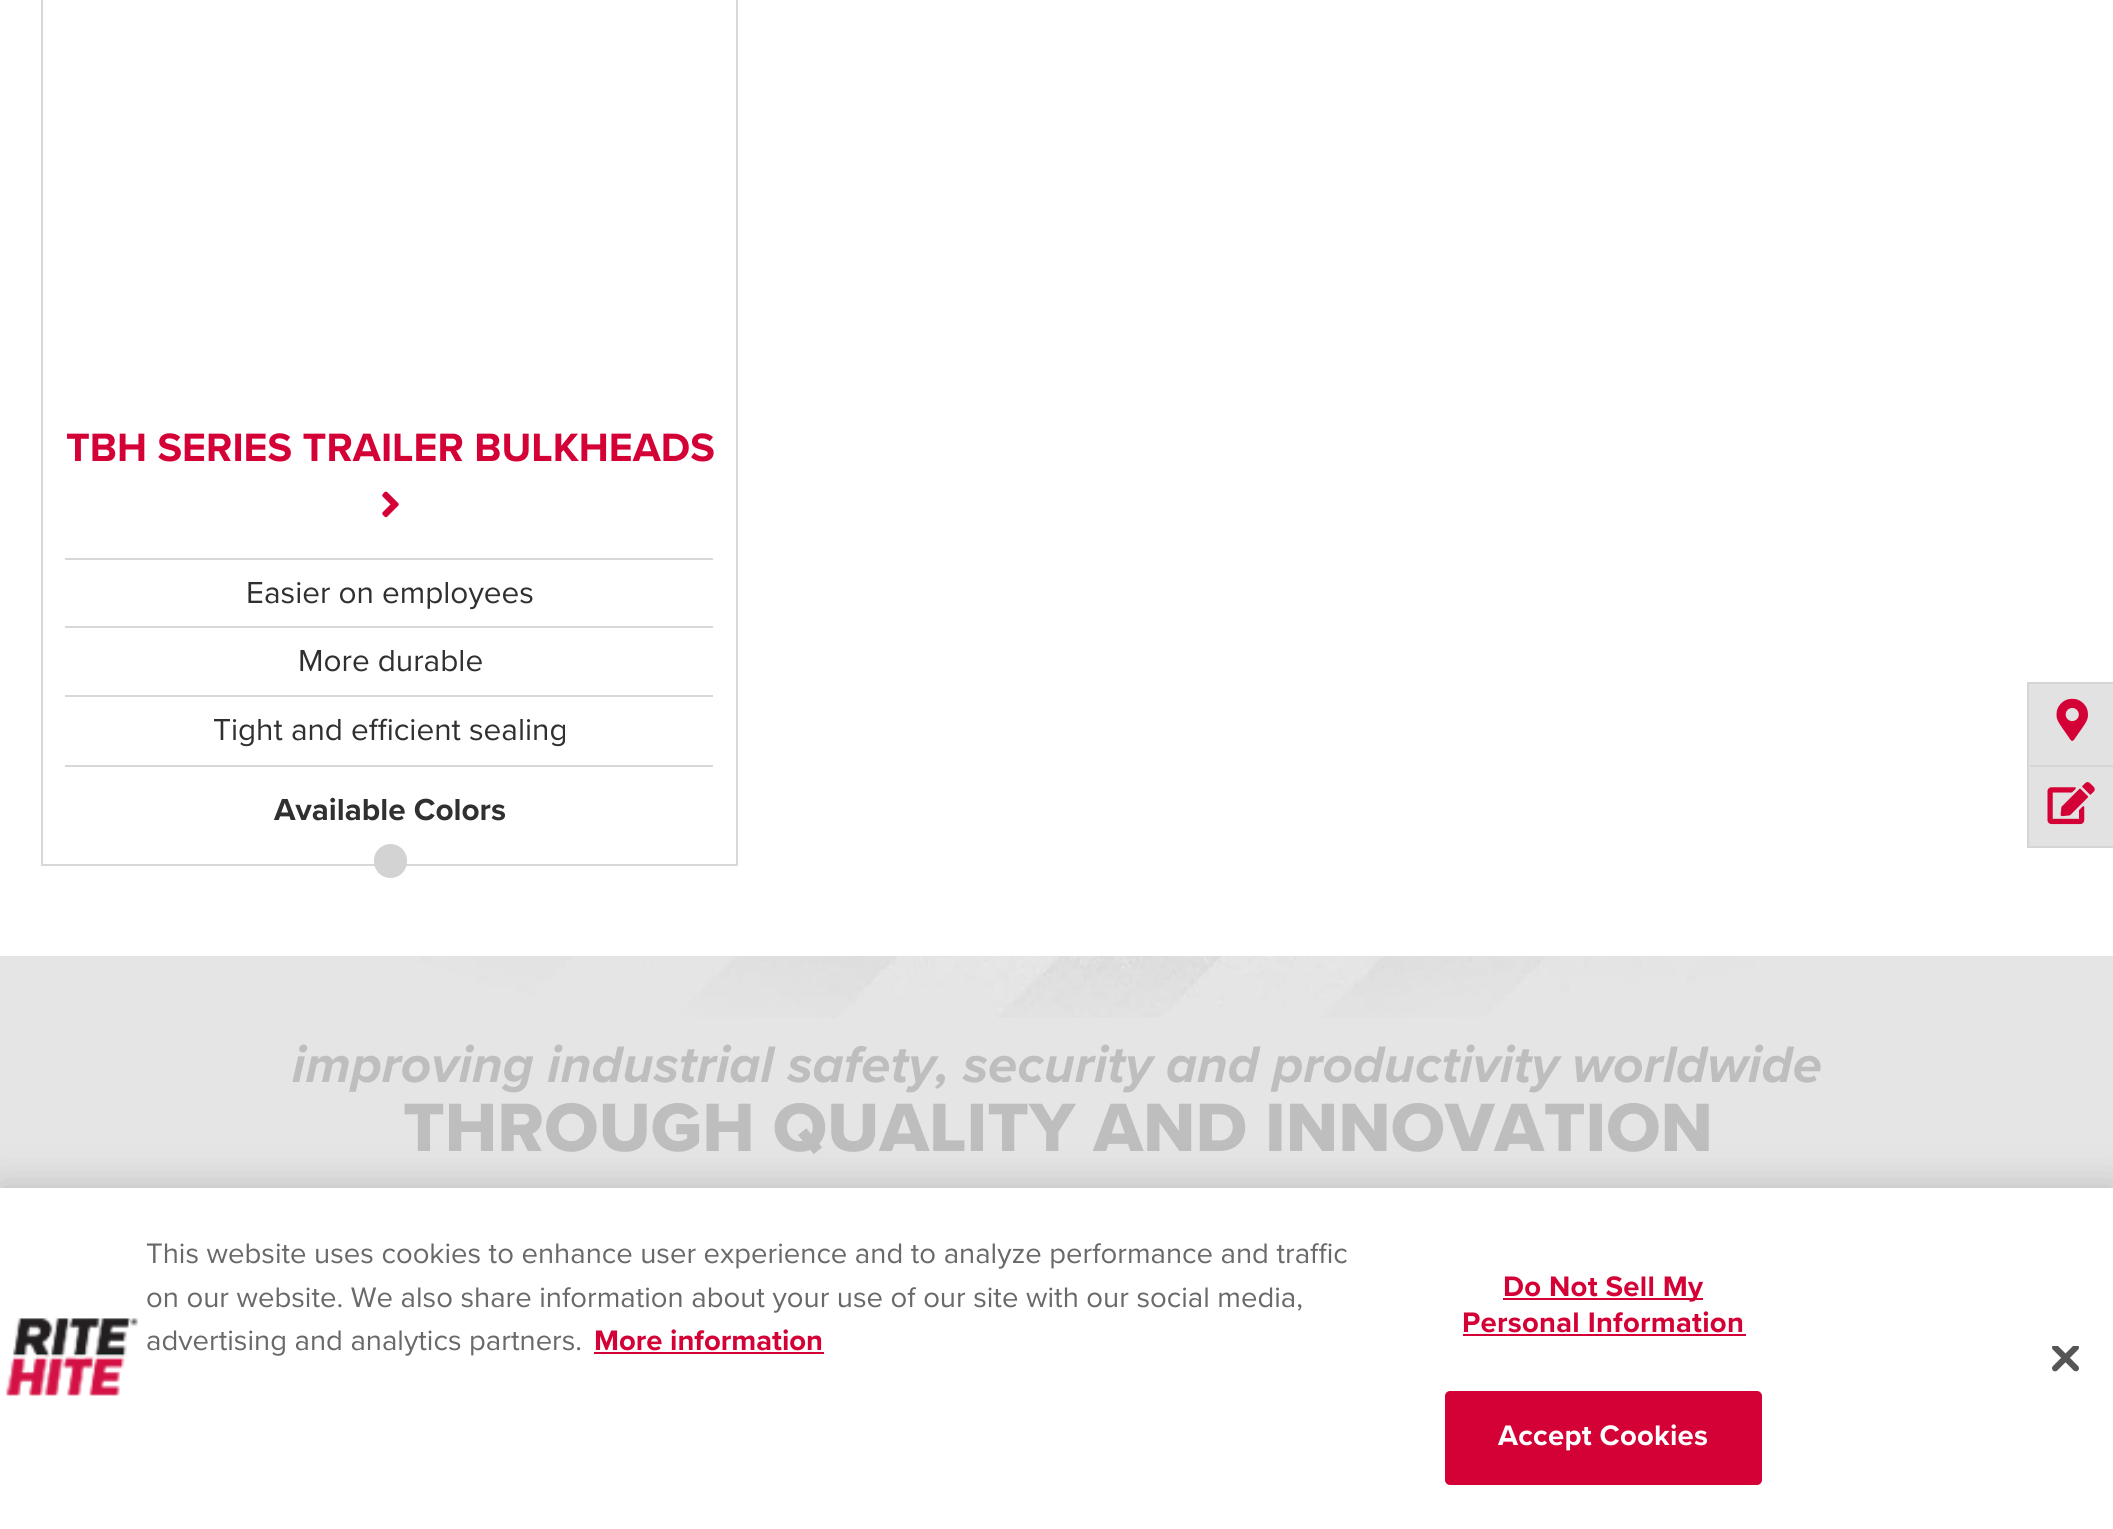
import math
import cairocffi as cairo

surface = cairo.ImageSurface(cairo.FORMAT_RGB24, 2113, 1529)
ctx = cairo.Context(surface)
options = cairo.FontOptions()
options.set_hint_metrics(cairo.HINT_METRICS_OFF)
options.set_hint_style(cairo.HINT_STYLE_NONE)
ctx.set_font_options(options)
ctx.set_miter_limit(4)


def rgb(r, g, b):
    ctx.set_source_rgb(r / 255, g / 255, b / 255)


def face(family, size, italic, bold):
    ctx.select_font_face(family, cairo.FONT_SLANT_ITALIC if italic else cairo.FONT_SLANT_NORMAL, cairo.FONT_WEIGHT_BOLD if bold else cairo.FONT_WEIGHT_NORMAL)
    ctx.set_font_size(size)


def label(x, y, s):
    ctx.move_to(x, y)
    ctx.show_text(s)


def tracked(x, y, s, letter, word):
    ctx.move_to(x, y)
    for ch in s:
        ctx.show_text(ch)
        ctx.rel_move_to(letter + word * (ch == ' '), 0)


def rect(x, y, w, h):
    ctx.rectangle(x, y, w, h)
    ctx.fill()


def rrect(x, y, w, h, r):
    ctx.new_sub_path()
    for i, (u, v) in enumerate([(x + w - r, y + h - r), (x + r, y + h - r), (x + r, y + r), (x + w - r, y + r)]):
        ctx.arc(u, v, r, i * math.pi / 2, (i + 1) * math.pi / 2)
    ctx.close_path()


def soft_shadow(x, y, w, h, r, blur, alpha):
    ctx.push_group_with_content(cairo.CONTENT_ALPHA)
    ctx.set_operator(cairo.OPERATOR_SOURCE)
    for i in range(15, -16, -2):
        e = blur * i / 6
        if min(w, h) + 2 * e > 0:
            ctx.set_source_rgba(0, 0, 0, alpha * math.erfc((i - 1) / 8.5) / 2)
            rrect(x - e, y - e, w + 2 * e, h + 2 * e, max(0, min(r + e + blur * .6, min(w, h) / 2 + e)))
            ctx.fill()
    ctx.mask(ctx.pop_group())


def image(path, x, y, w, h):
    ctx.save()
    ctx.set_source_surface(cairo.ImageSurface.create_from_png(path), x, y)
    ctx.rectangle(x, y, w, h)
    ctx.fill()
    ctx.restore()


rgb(229, 229, 229)
ctx.paint()
rgb(255, 255, 255)
rect(0, 0, 2113, 956)
ctx.rectangle(42, -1, 695, 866)
rgb(216, 216, 216)
ctx.stroke()
face('Proxima Nova', 41, 0, 1)
rgb(212, 1, 54)
label(66, 461, 'TBH SERIES TRAILER BULKHEADS')
image('image0.png', 382, 491, 17, 27)
rgb(216, 216, 216)
rect(65, 558, 648, 2)
face('Proxima Nova', 31.5, 0, 0)
rgb(48, 48, 48)
label(246, 603, 'Easier on employees')
rgb(216, 216, 216)
rect(65, 626, 648, 2)
rgb(48, 48, 48)
label(298, 671, 'More durable')
rgb(216, 216, 216)
rect(65, 695, 648, 2)
rect(65, 765, 648, 2)
rgb(48, 48, 48)
label(213, 740, 'Tight and efficient sealing')
face('Proxima Nova', 31.5, 0, 1)
label(274, 820, 'Available Colors')
rgb(211, 211, 211)
rrect(374, 844, 33, 34, 16.5)
ctx.fill()
image('image1.png', 276, 956, 1615, 62)
face('Proxima Nova', 53.15, 1, 1)
rgb(190, 190, 190)
tracked(292, 1082, 'improving industrial safety, security and productivity worldwide', 0, -0.25)
face('Proxima Nova ExtraBold', 70.9, 0, 0)
label(403, 1151, 'THROUGH QUALITY AND INNOVATION')
rgb(226, 226, 226)
ctx.rectangle(2028, 683, 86, 164)
ctx.fill_preserve()
rgb(213, 213, 213)
ctx.stroke()
rect(2030, 765, 83, 2)
image('image2.png', 2056, 698, 32, 43)
image('image3.png', 2047, 782, 48, 43)
rgb(0, 0, 0)
soft_shadow(0, 1188, 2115, 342, 0, 20, 0.2)
rgb(255, 255, 255)
rect(0, 1188, 2113, 341)
image('image4.png', 6, 1318, 132, 78)
face('Proxima Nova', 29.25, 0, 0)
rgb(105, 105, 105)
label(146, 1263, 'This website uses cookies to enhance user experience and to analyze performance and traffic')
label(146, 1307, 'on our website. We also share information about your use of our site with our social media,')
label(146, 1350, 'advertising and analytics partners.')
face('Proxima Nova', 29.25, 0, 1)
rgb(212, 1, 54)
label(594, 1350, 'More information')
rect(594, 1352, 230, 2)
rect(1503, 1298, 200, 2)
tracked(1503, 1296, 'Do Not Sell My', 0.25, 0)
tracked(1462, 1332, 'Personal Information', 0.25, 0)
rect(1463, 1334, 283, 2)
rrect(1446, 1392, 315, 92, 4)
ctx.fill_preserve()
ctx.stroke()
rgb(255, 255, 255)
tracked(1498, 1445, 'Accept Cookies', 0.25, 0)
image('image5.png', 2052, 1346, 27, 26)
surface.write_to_png('render.png')
